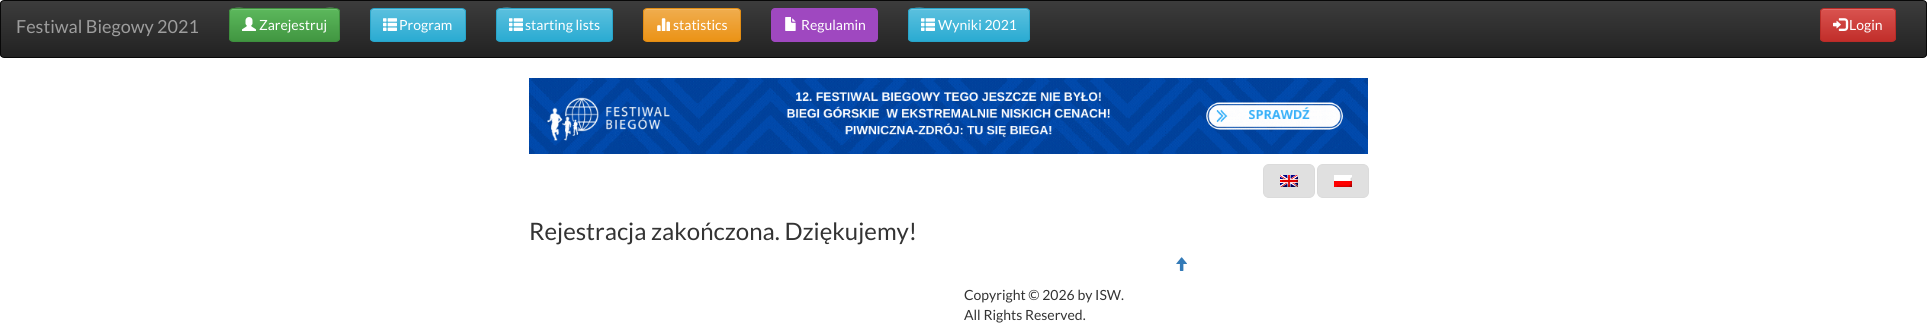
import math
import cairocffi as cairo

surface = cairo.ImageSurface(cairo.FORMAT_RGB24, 1927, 325)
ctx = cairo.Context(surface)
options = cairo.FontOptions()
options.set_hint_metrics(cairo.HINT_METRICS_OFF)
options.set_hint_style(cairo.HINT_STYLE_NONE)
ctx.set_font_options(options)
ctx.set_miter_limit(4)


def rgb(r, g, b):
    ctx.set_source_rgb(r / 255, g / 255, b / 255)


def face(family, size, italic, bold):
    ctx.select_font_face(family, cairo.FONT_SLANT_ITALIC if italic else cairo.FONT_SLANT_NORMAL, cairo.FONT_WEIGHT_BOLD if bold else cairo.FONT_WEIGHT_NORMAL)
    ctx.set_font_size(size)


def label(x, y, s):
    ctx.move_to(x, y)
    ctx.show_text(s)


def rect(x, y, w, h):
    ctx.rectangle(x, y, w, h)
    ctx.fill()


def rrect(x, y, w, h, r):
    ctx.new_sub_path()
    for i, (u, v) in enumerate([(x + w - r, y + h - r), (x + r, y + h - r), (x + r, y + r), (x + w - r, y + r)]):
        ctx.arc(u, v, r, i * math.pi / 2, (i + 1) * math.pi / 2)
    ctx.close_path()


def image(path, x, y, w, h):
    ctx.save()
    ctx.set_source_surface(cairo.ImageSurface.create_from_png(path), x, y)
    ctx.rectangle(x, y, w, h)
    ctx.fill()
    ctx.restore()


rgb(255, 255, 255)
ctx.paint()
ctx.save()
rrect(0, 0, 1927, 58, 4)
ctx.clip()
gradient = cairo.LinearGradient(964, 1, 964, 57)
gradient.add_color_stop_rgba(0, 0.235, 0.235, 0.235, 1)
gradient.add_color_stop_rgba(1, 0.133, 0.133, 0.133, 1)
ctx.set_source(gradient)
rect(0, 1, 1927, 56)
ctx.restore()
rrect(0.5, 0.5, 1926, 57, 3.5)
rgb(8, 8, 8)
ctx.set_line_width(1)
ctx.stroke()
face('Lato', 18, 0, 0)
rgb(157, 157, 157)
label(16, 33, 'Festiwal Biegowy 2021')
ctx.save()
rrect(229, 8, 111, 34, 4)
ctx.clip()
gradient = cairo.LinearGradient(285, 9, 285, 41)
gradient.add_color_stop_rgba(0, 0.361, 0.722, 0.361, 1)
gradient.add_color_stop_rgba(1, 0.255, 0.588, 0.255, 1)
ctx.set_source(gradient)
rect(229, 9, 111, 32)
ctx.restore()
rgb(116, 194, 116)
ctx.new_path()
ctx.move_to(233, 10)
ctx.line_to(336, 10)
ctx.curve_to(338, 10, 339, 11, 339, 13)
ctx.curve_to(339, 4, 321, 9, 319, 9)
ctx.line_to(250, 9)
ctx.curve_to(248, 9, 230, 4, 230, 13)
ctx.curve_to(230, 11, 231, 10, 233, 10)
ctx.close_path()
ctx.fill()
rrect(229.5, 8.5, 110, 33, 3.5)
rgb(62, 143, 62)
ctx.stroke()
image('image0.png', 242, 17, 14, 14)
face('Lato', 14, 0, 0)
rgb(255, 255, 255)
label(259, 30, 'Zarejestruj')
ctx.save()
rrect(370, 8, 96, 34, 4)
ctx.clip()
gradient = cairo.LinearGradient(418, 9, 418, 41)
gradient.add_color_stop_rgba(0, 0.357, 0.753, 0.871, 1)
gradient.add_color_stop_rgba(1, 0.165, 0.671, 0.824, 1)
ctx.set_source(gradient)
rect(370, 9, 96, 32)
ctx.restore()
rgb(115, 201, 227)
ctx.new_path()
ctx.move_to(374, 10)
ctx.line_to(462, 10)
ctx.curve_to(464, 10, 465, 11, 465, 13)
ctx.curve_to(465, 5, 451, 9, 447, 9)
ctx.line_to(389, 9)
ctx.curve_to(385, 9, 371, 5, 371, 13)
ctx.curve_to(371, 11, 372, 10, 374, 10)
ctx.close_path()
ctx.fill()
rrect(370.5, 8.5, 95, 33, 3.5)
rgb(40, 164, 201)
ctx.stroke()
image('image1.png', 383, 18, 14, 13)
rgb(255, 255, 255)
label(399, 30, 'Program')
ctx.save()
rrect(496, 8, 117, 34, 4)
ctx.clip()
gradient = cairo.LinearGradient(555, 9, 555, 41)
gradient.add_color_stop_rgba(0, 0.357, 0.753, 0.871, 1)
gradient.add_color_stop_rgba(1, 0.165, 0.671, 0.824, 1)
ctx.set_source(gradient)
rect(496, 9, 117, 32)
ctx.restore()
rgb(115, 201, 227)
ctx.new_path()
ctx.move_to(500, 10)
ctx.line_to(609, 10)
ctx.curve_to(611, 10, 612, 11, 612, 13)
ctx.curve_to(612, 11, 611, 9, 609, 9)
ctx.line_to(518, 9)
ctx.curve_to(517, 9, 497, 4, 497, 13)
ctx.curve_to(497, 11, 498, 10, 500, 10)
ctx.close_path()
ctx.fill()
rrect(496.5, 8.5, 116, 33, 3.5)
rgb(40, 164, 201)
ctx.stroke()
image('image1.png', 509, 18, 14, 13)
rgb(255, 255, 255)
label(525, 30, 'starting lists')
ctx.save()
rrect(643, 8, 98, 34, 4)
ctx.clip()
gradient = cairo.LinearGradient(692, 9, 692, 41)
gradient.add_color_stop_rgba(0, 0.941, 0.678, 0.306, 1)
gradient.add_color_stop_rgba(1, 0.922, 0.576, 0.086, 1)
ctx.set_source(gradient)
rect(643, 9, 98, 32)
ctx.restore()
rgb(242, 185, 104)
ctx.new_path()
ctx.move_to(647, 10)
ctx.line_to(737, 10)
ctx.curve_to(739, 10, 740, 11, 740, 13)
ctx.curve_to(740, 5, 725, 9, 722, 9)
ctx.line_to(662, 9)
ctx.curve_to(659, 9, 644, 5, 644, 13)
ctx.curve_to(644, 11, 645, 10, 647, 10)
ctx.close_path()
ctx.fill()
rrect(643.5, 8.5, 97, 33, 3.5)
rgb(227, 141, 19)
ctx.stroke()
image('image2.png', 657, 18, 13, 13)
rgb(255, 255, 255)
label(673, 30, 'statistics')
rgb(159, 72, 192)
rrect(771, 8, 107, 34, 4)
ctx.fill()
image('image3.png', 785, 17, 11, 14)
rgb(255, 255, 255)
label(801, 30, 'Regulamin')
ctx.save()
rrect(908, 8, 122, 34, 4)
ctx.clip()
gradient = cairo.LinearGradient(969, 9, 969, 41)
gradient.add_color_stop_rgba(0, 0.357, 0.753, 0.871, 1)
gradient.add_color_stop_rgba(1, 0.165, 0.671, 0.824, 1)
ctx.set_source(gradient)
rect(908, 9, 122, 32)
ctx.restore()
rgb(115, 201, 227)
ctx.new_path()
ctx.move_to(912, 10)
ctx.line_to(1026, 10)
ctx.curve_to(1028, 10, 1029, 11, 1029, 13)
ctx.curve_to(1029, 11, 1028, 9, 1026, 9)
ctx.line_to(931, 9)
ctx.curve_to(930, 9, 909, 4, 909, 13)
ctx.curve_to(909, 11, 910, 10, 912, 10)
ctx.close_path()
ctx.fill()
rrect(908.5, 8.5, 121, 33, 3.5)
rgb(40, 164, 201)
ctx.stroke()
image('image1.png', 921, 18, 14, 13)
rgb(255, 255, 255)
label(938, 30, 'Wyniki 2021')
ctx.save()
rrect(1820, 8, 76, 34, 4)
ctx.clip()
gradient = cairo.LinearGradient(1858, 9, 1858, 41)
gradient.add_color_stop_rgba(0, 0.851, 0.325, 0.31, 1)
gradient.add_color_stop_rgba(1, 0.757, 0.18, 0.165, 1)
ctx.set_source(gradient)
rect(1820, 9, 76, 32)
ctx.restore()
rgb(223, 108, 105)
ctx.new_path()
ctx.move_to(1824, 10)
ctx.line_to(1892, 10)
ctx.curve_to(1894, 10, 1895, 11, 1895, 13)
ctx.curve_to(1895, 6, 1885, 9, 1881, 9)
ctx.line_to(1835, 9)
ctx.curve_to(1831, 9, 1821, 6, 1821, 13)
ctx.curve_to(1821, 11, 1822, 10, 1824, 10)
ctx.close_path()
ctx.fill()
rrect(1820.5, 8.5, 75, 33, 3.5)
rgb(185, 44, 40)
ctx.stroke()
image('image4.png', 1833, 18, 16, 13)
rgb(255, 255, 255)
label(1849, 30, 'Login')
image('image5.png', 529, 78, 839, 76)
rgb(224, 224, 224)
rrect(1263.5, 164.5, 51, 33, 5.5)
ctx.fill_preserve()
rgb(219, 219, 219)
ctx.stroke()
image('image6.png', 1280, 175, 18, 12)
rgb(224, 224, 224)
rrect(1317.5, 164.5, 51, 33, 5.5)
ctx.fill_preserve()
rgb(219, 219, 219)
ctx.stroke()
image('image7.png', 1334, 175, 18, 12)
face('Lato', 24, 0, 0)
rgb(51, 51, 51)
label(529, 240, 'Rejestracja zakończona. Dziękujemy!')
image('image8.png', 1176, 257, 11, 14)
face('Lato', 14, 0, 0)
label(964, 300, 'Copyright © 2026 by ISW.')
label(964, 320, 'All Rights Reserved.')
surface.write_to_png('render.png')
